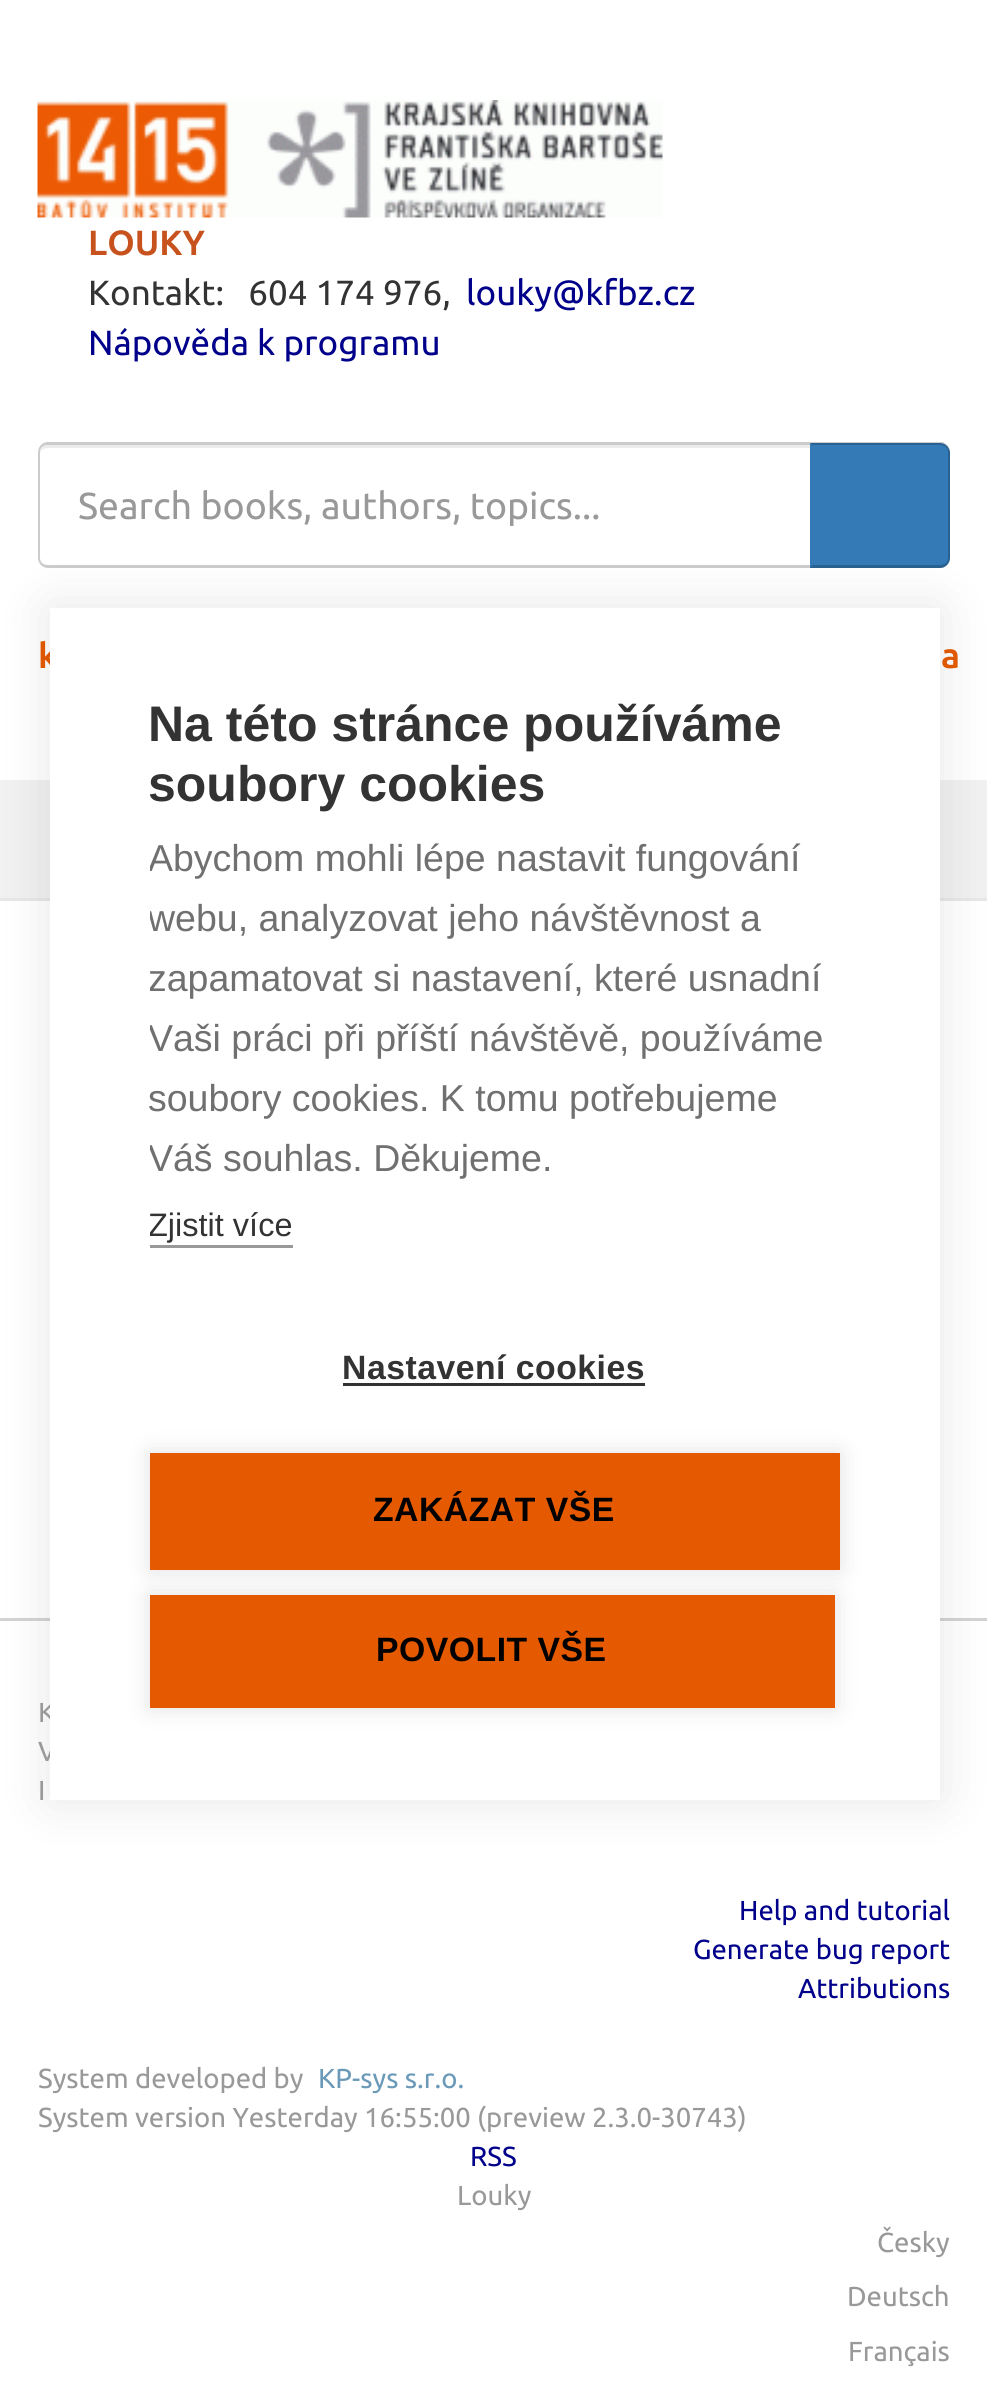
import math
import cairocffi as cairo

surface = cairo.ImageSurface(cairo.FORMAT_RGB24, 987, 2403)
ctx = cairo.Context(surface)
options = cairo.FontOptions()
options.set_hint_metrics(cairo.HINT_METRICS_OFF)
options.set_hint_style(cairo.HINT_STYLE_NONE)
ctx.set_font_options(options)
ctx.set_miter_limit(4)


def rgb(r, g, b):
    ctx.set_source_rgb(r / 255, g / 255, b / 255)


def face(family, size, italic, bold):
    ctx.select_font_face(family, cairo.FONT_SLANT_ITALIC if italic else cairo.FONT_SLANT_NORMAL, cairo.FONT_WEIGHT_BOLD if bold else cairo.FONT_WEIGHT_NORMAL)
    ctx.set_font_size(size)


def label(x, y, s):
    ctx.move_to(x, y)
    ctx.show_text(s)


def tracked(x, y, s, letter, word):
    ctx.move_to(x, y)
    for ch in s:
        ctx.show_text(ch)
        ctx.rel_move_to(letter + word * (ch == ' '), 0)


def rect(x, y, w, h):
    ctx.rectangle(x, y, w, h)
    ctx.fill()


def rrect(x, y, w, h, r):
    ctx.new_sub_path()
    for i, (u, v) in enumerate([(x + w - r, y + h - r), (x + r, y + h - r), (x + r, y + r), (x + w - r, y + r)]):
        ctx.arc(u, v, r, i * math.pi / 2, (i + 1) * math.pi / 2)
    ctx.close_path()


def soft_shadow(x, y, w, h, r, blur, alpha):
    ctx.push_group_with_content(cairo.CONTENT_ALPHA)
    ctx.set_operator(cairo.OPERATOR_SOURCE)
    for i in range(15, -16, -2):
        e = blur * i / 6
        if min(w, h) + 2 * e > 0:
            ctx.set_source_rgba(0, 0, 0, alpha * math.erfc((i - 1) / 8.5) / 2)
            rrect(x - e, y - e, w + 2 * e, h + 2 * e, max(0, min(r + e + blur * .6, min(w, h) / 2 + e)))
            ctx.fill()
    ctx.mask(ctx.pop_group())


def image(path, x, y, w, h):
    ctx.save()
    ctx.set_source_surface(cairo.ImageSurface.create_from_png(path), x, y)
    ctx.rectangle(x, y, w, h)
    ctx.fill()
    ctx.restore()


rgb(255, 255, 255)
ctx.paint()
image('image0.png', 37, 100, 626, 118)
face('Ubuntu', 35, 0, 1)
rgb(199, 82, 29)
label(88, 255, 'LOUKY')
face('Ubuntu', 35, 0, 0)
rgb(51, 51, 51)
label(88, 305, 'Kontakt:   604 174 976,')
rgb(0, 0, 139)
label(466, 305, 'louky@kfbz.cz')
label(88, 355, 'Nápověda k programu')
rgb(236, 236, 236)
ctx.new_path()
ctx.move_to(48, 448)
ctx.line_to(810, 448)
ctx.line_to(810, 445)
ctx.line_to(48, 445)
ctx.curve_to(42, 445, 40, 450, 40, 455)
ctx.curve_to(40, 451, 43, 448, 48, 448)
ctx.close_path()
ctx.fill()
rgb(204, 204, 204)
ctx.set_fill_rule(cairo.FILL_RULE_EVEN_ODD)
ctx.new_path()
ctx.move_to(48, 442)
ctx.line_to(810, 442)
ctx.line_to(810, 568)
ctx.line_to(48, 568)
ctx.curve_to(42, 568, 38, 563, 38, 558)
ctx.line_to(38, 452)
ctx.curve_to(38, 447, 42, 442, 48, 442)
ctx.close_path()
ctx.move_to(48, 445)
ctx.line_to(810, 445)
ctx.line_to(810, 565)
ctx.line_to(48, 565)
ctx.curve_to(43, 565, 40, 562, 40, 558)
ctx.line_to(40, 452)
ctx.curve_to(40, 448, 43, 445, 48, 445)
ctx.close_path()
ctx.fill()
face('Ubuntu', 37.5, 0, 0)
rgb(153, 153, 153)
label(78, 519, 'Search books, authors, topics...')
rgb(51, 122, 183)
ctx.new_path()
ctx.move_to(810, 443)
ctx.line_to(940, 443)
ctx.curve_to(945.5, 443, 950, 447.5, 950, 453)
ctx.line_to(950, 558)
ctx.curve_to(950, 563.5, 945.5, 568, 940, 568)
ctx.line_to(810, 568)
ctx.close_path()
ctx.fill()
ctx.set_source_rgba(0, 0, 0, 0.2)
ctx.set_fill_rule(cairo.FILL_RULE_WINDING)
ctx.new_path()
ctx.move_to(810, 442)
ctx.line_to(943, 442)
ctx.line_to(947, 445)
ctx.line_to(946, 447)
ctx.curve_to(944, 446, 942, 445, 940, 445)
ctx.line_to(812, 445)
ctx.close_path()
ctx.fill()
ctx.new_path()
ctx.move_to(950, 558)
ctx.line_to(950, 452)
ctx.curve_to(950, 450, 949, 447, 947, 445)
ctx.line_to(946, 447)
ctx.curve_to(947, 448, 948, 450, 948, 452)
ctx.line_to(948, 558)
ctx.curve_to(948, 560, 947, 562, 946, 563)
ctx.line_to(947, 565)
ctx.curve_to(949, 563, 950, 560, 950, 558)
ctx.close_path()
ctx.fill()
ctx.new_path()
ctx.move_to(943, 568)
ctx.line_to(810, 568)
ctx.line_to(812, 565)
ctx.line_to(940, 565)
ctx.curve_to(942, 565, 944, 564, 946, 563)
ctx.line_to(947, 565)
ctx.close_path()
ctx.fill()
face('Ubuntu', 35, 0, 1)
rgb(229, 90, 0)
label(38, 668, 'k')
label(941, 668, 'a')
rgb(241, 241, 242)
rect(0, 780, 987, 118)
rgb(231, 231, 231)
rect(0, 898, 987, 3)
rgb(211, 211, 211)
rect(0, 1618, 987, 3)
rgb(0, 0, 0)
soft_shadow(50, 608, 890, 1192, 0, 25, 0.1)
face('Ubuntu', 27.5, 0, 0)
rgb(153, 153, 153)
label(38, 1722, 'K')
label(38, 1761, 'V')
rgb(255, 255, 255)
rect(50, 608, 890, 1192)
face('Liberation Sans', 50, 0, 1)
rgb(51, 51, 51)
label(148, 741, 'Na této stránce používáme')
label(148, 801, 'soubory cookies')
ctx.save()
ctx.rectangle(150, 700, 690, 560)
ctx.clip()
face('Liberation Sans', 37.5, 0, 0)
rgb(112, 112, 112)
label(148, 871, 'Abychom mohli lépe nastavit fungování')
label(148, 931, 'webu, analyzovat jeho návštěvnost a')
label(148, 991, 'zapamatovat si nastavení, které usnadní')
label(148, 1051, 'Vaši práci při příští návštěvě, používáme')
ctx.restore()
face('Liberation Sans', 37.5, 0, 0)
rgb(112, 112, 112)
label(148, 1111, 'soubory cookies. K tomu potřebujeme')
ctx.save()
ctx.rectangle(150, 700, 690, 560)
ctx.clip()
label(148, 1171, 'Váš souhlas. Děkujeme.')
face('Liberation Sans', 32.5, 0, 0)
rgb(51, 51, 51)
label(148, 1236, 'Zjistit více')
ctx.restore()
rgb(153, 153, 153)
rect(150, 1245, 143, 3)
face('Liberation Sans', 33.75, 0, 1)
rgb(51, 51, 51)
tracked(342, 1379, 'Nastavení cookies', 0.5, 0)
rect(343, 1383, 302, 3)
rgb(0, 0, 0)
soft_shadow(150, 1453, 690, 117, 0, 12.5, 0.12)
rgb(229, 90, 0)
rect(150, 1453, 690, 117)
rgb(0, 0, 0)
tracked(373, 1521, 'ZAKÁZAT VŠE', 0.5, 0)
rgb(0, 0, 0)
soft_shadow(150, 1595, 685, 113, 0, 12.5, 0.12)
rgb(229, 90, 0)
rect(150, 1595, 685, 113)
rgb(0, 0, 0)
tracked(376, 1661, 'POVOLIT VŠE', 0.5, 0)
face('Ubuntu', 27.5, 0, 0)
rgb(153, 153, 153)
label(38, 1800, 'I')
rgb(0, 0, 139)
label(739, 1920, 'Help and tutorial')
label(693, 1959, 'Generate bug report')
label(798, 1998, 'Attributions')
rgb(153, 153, 153)
label(38, 2088, 'System developed by')
rgb(107, 154, 184)
label(318, 2088, 'KP-sys s.r.o.')
rgb(153, 153, 153)
label(38, 2127, 'System version Yesterday 16:55:00 (preview 2.3.0-30743)')
rgb(0, 0, 139)
label(470, 2166, 'RSS')
rgb(153, 153, 153)
label(457, 2205, 'Louky')
label(877, 2252, 'Česky')
label(847, 2306, 'Deutsch')
label(848, 2361, 'Français')
surface.write_to_png('render.png')
